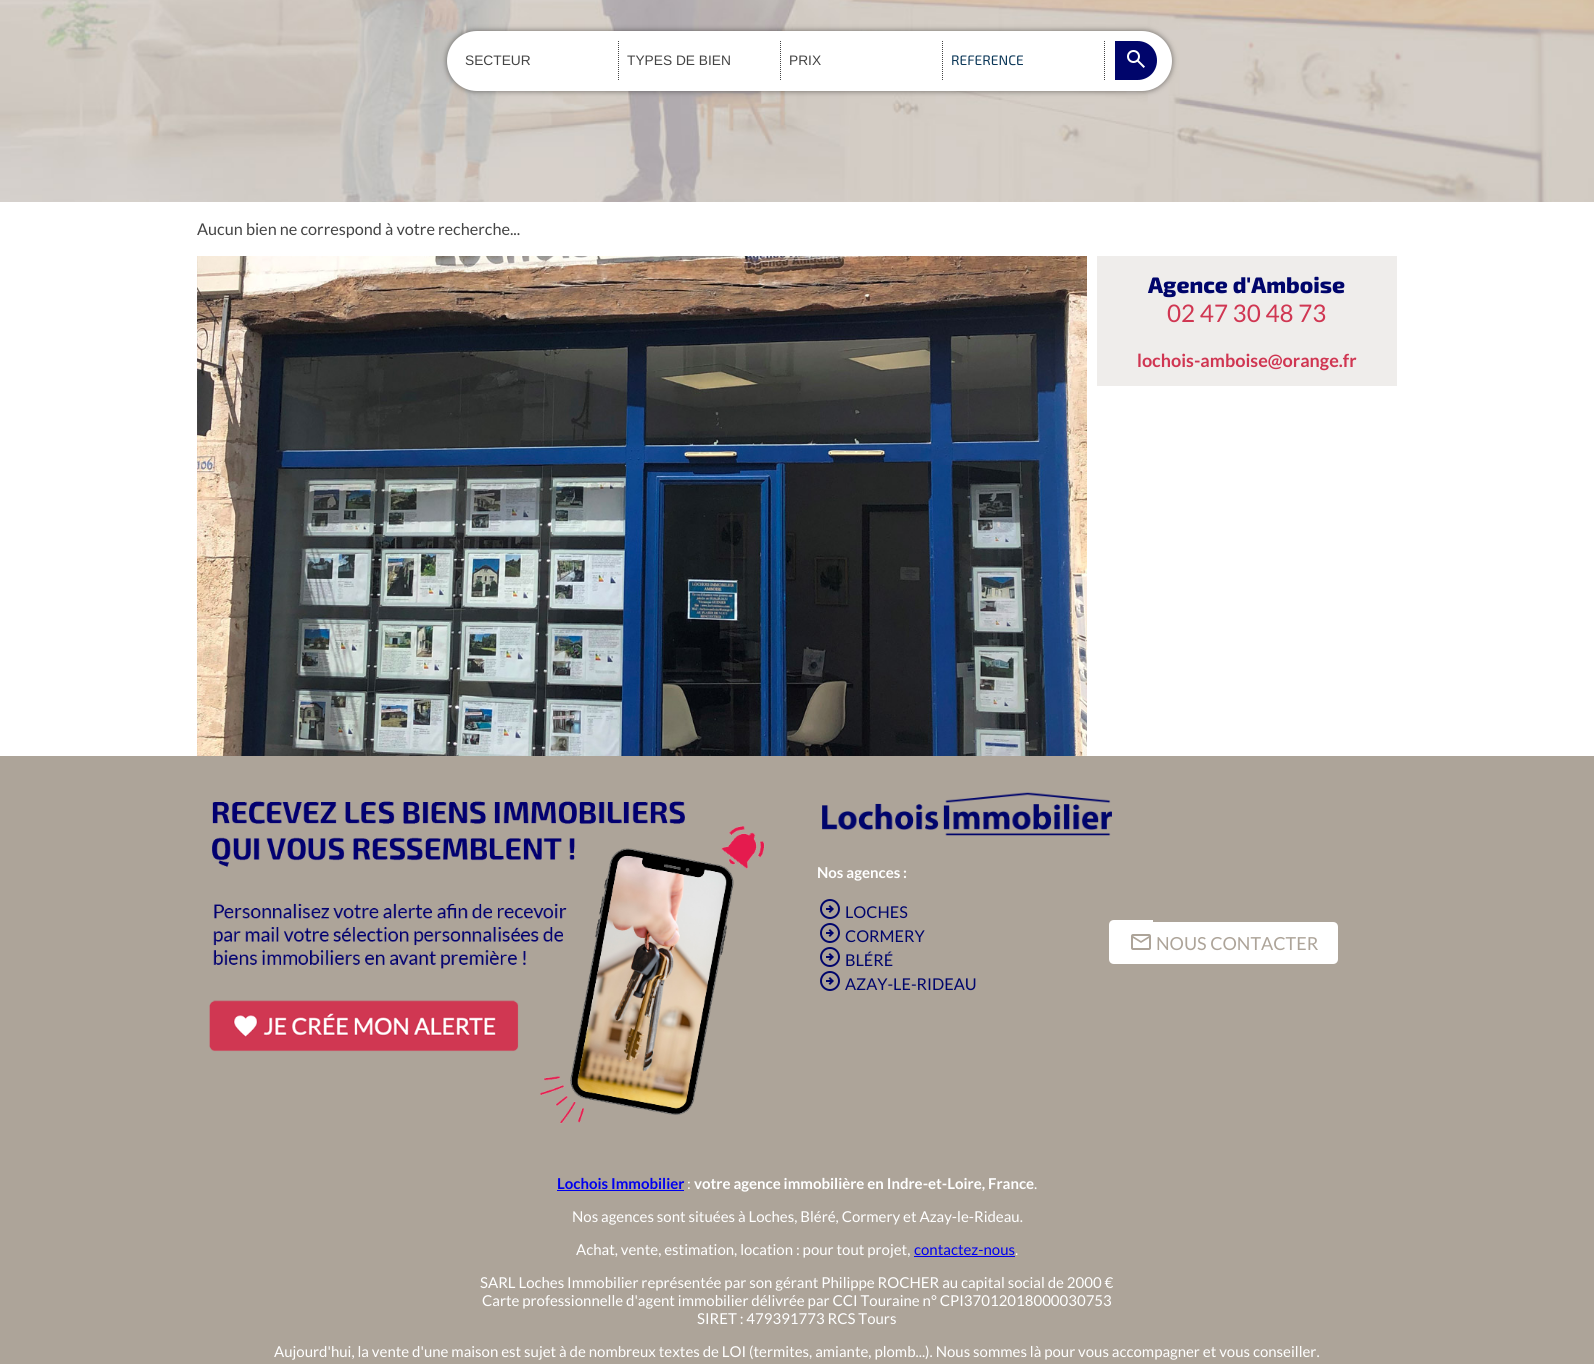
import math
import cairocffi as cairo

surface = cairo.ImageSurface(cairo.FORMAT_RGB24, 1594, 1364)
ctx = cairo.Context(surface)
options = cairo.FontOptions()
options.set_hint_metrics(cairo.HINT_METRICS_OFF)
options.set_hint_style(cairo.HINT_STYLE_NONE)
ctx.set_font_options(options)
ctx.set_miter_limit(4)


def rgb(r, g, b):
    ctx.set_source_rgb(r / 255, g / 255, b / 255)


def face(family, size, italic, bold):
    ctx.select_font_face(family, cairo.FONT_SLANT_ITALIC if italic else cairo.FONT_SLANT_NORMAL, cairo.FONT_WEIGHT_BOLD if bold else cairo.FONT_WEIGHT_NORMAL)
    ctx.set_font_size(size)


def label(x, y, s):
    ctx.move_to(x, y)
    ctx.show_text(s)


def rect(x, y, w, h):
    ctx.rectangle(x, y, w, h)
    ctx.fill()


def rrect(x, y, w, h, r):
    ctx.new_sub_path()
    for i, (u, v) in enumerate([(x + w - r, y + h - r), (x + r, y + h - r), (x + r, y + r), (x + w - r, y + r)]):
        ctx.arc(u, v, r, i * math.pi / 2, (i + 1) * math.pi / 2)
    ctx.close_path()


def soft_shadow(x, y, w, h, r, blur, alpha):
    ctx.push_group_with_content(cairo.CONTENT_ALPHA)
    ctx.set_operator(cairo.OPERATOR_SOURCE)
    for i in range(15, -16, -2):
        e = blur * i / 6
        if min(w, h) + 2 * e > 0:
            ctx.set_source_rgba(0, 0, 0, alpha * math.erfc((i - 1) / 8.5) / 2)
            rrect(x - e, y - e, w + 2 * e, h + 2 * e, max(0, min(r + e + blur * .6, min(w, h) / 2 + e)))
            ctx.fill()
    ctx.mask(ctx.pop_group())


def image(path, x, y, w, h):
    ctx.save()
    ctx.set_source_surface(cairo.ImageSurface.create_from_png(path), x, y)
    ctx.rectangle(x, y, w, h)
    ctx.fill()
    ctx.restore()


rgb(255, 255, 255)
ctx.paint()
image('image0.png', 0, 0, 1594, 202)
rgb(0, 0, 0)
soft_shadow(447, 31, 725, 60, 30, 3, 0.5)
rgb(255, 255, 255)
rrect(447, 31, 725, 60, 30)
ctx.fill()
ctx.new_path()
ctx.move_to(618.5, 41)
ctx.line_to(618.5, 81)
rgb(68, 68, 68)
ctx.set_line_width(1)
ctx.set_dash([1, 1])
ctx.stroke()
face('Liberation Sans', 13.75, 0, 0)
label(465, 65, 'SECTEUR')
ctx.new_path()
ctx.move_to(780.5, 41)
ctx.line_to(780.5, 81)
ctx.stroke()
label(627, 65, 'TYPES DE BIEN')
ctx.new_path()
ctx.move_to(942.5, 41)
ctx.line_to(942.5, 81)
ctx.stroke()
label(789, 65, 'PRIX')
ctx.new_path()
ctx.move_to(1104.5, 41)
ctx.line_to(1104.5, 81)
ctx.stroke()
face('Exo 2', 13.75, 0, 0)
rgb(10, 54, 87)
label(951, 65, 'REFERENCE')
rgb(0, 5, 107)
ctx.new_path()
ctx.move_to(1115, 41)
ctx.line_to(1137.5, 41)
ctx.curve_to(1148.5, 41, 1157, 49.5, 1157, 60.5)
ctx.curve_to(1157, 71.5, 1148.5, 80, 1137.5, 80)
ctx.line_to(1115, 80)
ctx.close_path()
ctx.fill()
image('image1.png', 1127, 50, 18, 18)
face('Lato', 16.25, 0, 0)
rgb(68, 68, 68)
label(197, 235, 'Aucun bien ne correspond à votre recherche...')
image('image2.png', 197, 256, 890, 500)
rgb(239, 237, 235)
rect(1097, 256, 300, 130)
face('Exo 2 ExtraBold', 22.5, 0, 0)
rgb(0, 5, 107)
label(1148, 293, 'Agence d\'Amboise')
face('Lato', 24.25, 0, 0)
rgb(208, 54, 82)
label(1167, 322, '02 47 30 48 73')
face('Lato', 18, 0, 1)
label(1137, 367, 'lochois-amboise@orange.fr')
rgb(173, 164, 153)
rect(0, 756, 1594, 608)
image('image3.png', 209, 801, 556, 323)
image('image4.png', 822, 792, 290, 44)
face('Lato', 15, 0, 1)
rgb(255, 255, 255)
label(817, 878, 'Nos agences :')
image('image5.png', 820, 899, 20, 20)
face('Lato', 16.25, 0, 0)
rgb(0, 5, 107)
label(845, 918, 'LOCHES')
image('image5.png', 820, 923, 20, 20)
label(845, 942, 'CORMERY')
image('image5.png', 820, 947, 20, 20)
label(845, 966, 'BLÉRÉ')
image('image5.png', 820, 971, 20, 20)
label(845, 990, 'AZAY-LE-RIDEAU')
rgb(255, 255, 255)
ctx.new_path()
ctx.move_to(1114, 920)
ctx.line_to(1153, 920)
ctx.line_to(1153, 964)
ctx.line_to(1114, 964)
ctx.curve_to(1111, 964, 1109, 962, 1109, 959)
ctx.line_to(1109, 925)
ctx.curve_to(1109, 922, 1111, 920, 1114, 920)
ctx.close_path()
ctx.fill()
ctx.new_path()
ctx.move_to(1153, 922)
ctx.line_to(1333, 922)
ctx.curve_to(1336, 922, 1338, 924, 1338, 927)
ctx.line_to(1338, 959)
ctx.curve_to(1338, 962, 1336, 964, 1333, 964)
ctx.line_to(1153, 964)
ctx.close_path()
ctx.fill()
image('image6.png', 1131, 934, 20, 16)
face('Lato', 18, 0, 0)
rgb(173, 164, 153)
label(1156, 950, 'NOUS CONTACTER')
face('Lato', 15, 0, 1)
rgb(0, 0, 238)
label(557, 1189, 'Lochois Immobilier')
rect(557, 1190, 127, 1)
face('Lato', 15, 0, 0)
rgb(255, 255, 255)
label(687, 1189, ':')
face('Lato', 15, 0, 1)
label(694, 1189, 'votre agence immobilière en Indre-et-Loire, France')
face('Lato', 15, 0, 0)
label(1034, 1189, '.')
label(572, 1222, 'Nos agences sont situées à Loches, Bléré, Cormery et Azay-le-Rideau.')
label(576, 1255, 'Achat, vente, estimation, location : pour tout projet,')
rgb(0, 0, 238)
label(914, 1255, 'contactez-nous')
rect(914, 1256, 101, 1)
rgb(255, 255, 255)
label(1015, 1255, '.')
label(480, 1288, 'SARL Loches Immobilier représentée par son gérant Philippe ROCHER au capital social de 2000 €')
label(482, 1306, 'Carte professionnelle d\'agent immobilier délivrée par CCI Touraine n° CPI37012018000030753')
label(697, 1324, 'SIRET : 479391773 RCS Tours')
label(274, 1357, 'Aujourd\'hui, la vente d\'une maison est sujet à de nombreux textes de LOI (termites, amiante, plomb...). Nous sommes là pour vous accompagner et vous conseiller.')
surface.write_to_png('render.png')
